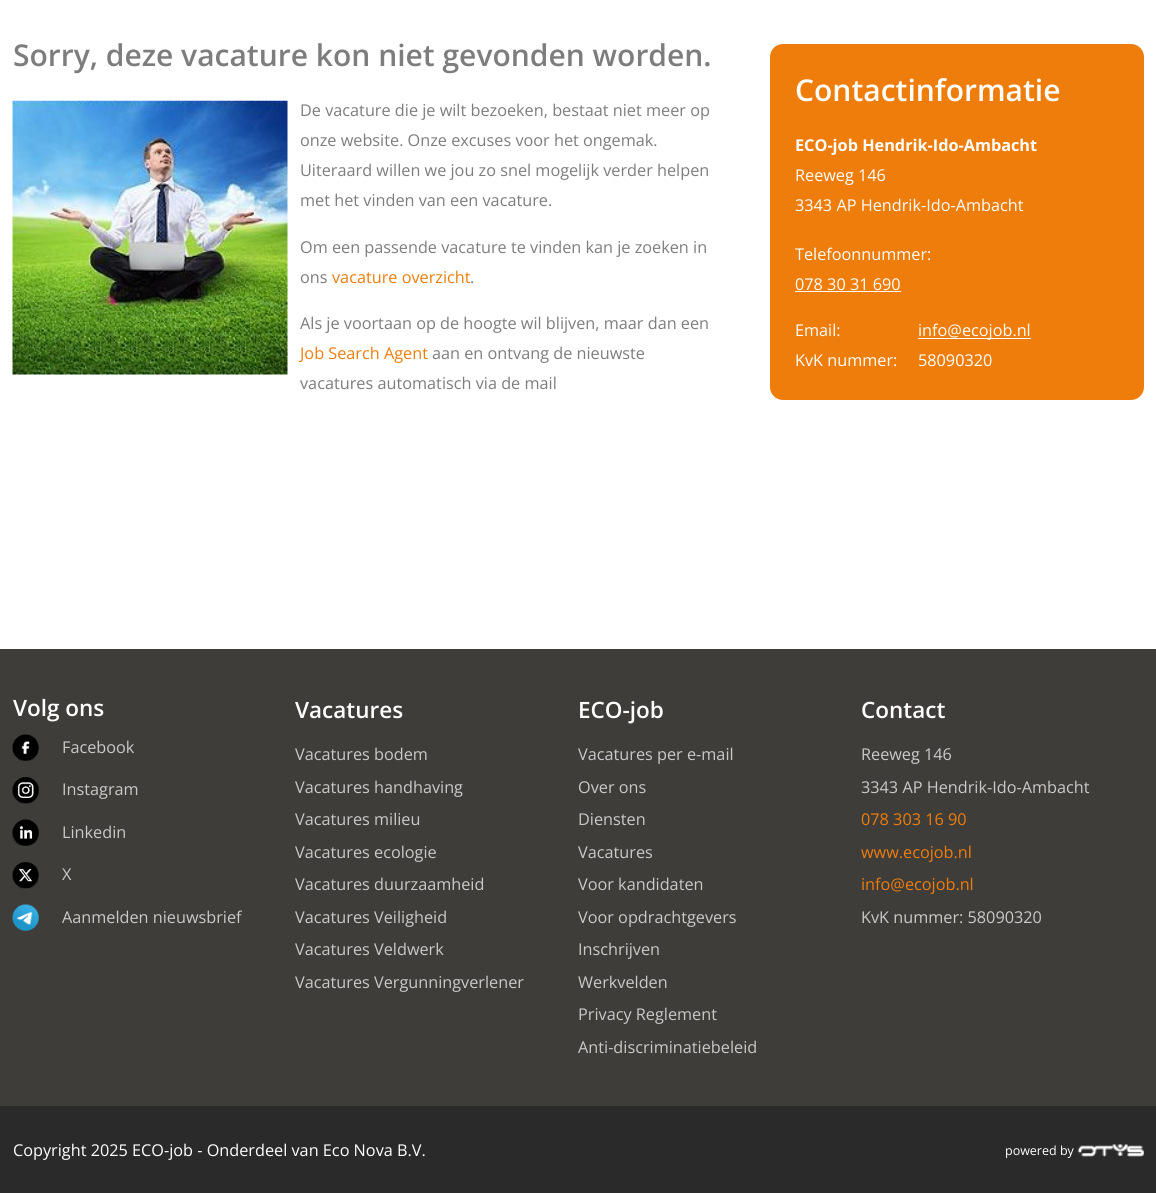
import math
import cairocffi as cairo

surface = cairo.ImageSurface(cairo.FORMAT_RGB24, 1156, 1193)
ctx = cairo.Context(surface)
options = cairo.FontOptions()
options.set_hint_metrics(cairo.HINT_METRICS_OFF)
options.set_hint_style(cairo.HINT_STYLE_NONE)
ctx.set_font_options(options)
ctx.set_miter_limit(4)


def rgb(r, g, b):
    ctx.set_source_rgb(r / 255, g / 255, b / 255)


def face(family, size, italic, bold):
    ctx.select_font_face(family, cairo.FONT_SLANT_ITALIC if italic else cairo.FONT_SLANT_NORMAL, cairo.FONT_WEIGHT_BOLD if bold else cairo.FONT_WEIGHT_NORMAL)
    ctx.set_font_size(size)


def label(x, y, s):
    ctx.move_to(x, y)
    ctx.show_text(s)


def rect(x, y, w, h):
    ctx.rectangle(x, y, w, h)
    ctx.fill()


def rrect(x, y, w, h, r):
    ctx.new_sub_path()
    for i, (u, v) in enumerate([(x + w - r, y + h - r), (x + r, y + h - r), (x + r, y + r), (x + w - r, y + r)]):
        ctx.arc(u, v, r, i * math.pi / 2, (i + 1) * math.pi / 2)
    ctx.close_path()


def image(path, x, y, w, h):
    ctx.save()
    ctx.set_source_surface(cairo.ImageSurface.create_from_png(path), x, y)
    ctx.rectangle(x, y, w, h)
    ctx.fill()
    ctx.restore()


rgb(255, 255, 255)
ctx.paint()
face('Open Sans SemiBold', 30, 0, 0)
rgb(125, 125, 125)
label(13, 66, 'Sorry, deze vacature kon niet gevonden worden.')
image('image0.png', 12, 100, 276, 275)
face('Open Sans', 16.25, 0, 0)
label(300, 116, 'De vacature die je wilt bezoeken, bestaat niet meer op')
label(300, 146, 'onze website. Onze excuses voor het ongemak.')
label(300, 176, 'Uiteraard willen we jou zo snel mogelijk verder helpen')
label(300, 206, 'met het vinden van een vacature.')
label(300, 253, 'Om een passende vacature te vinden kan je zoeken in')
label(300, 283, 'ons')
rgb(238, 125, 12)
label(332, 283, 'vacature overzicht')
rgb(125, 125, 125)
label(470, 283, '.')
label(300, 329, 'Als je voortaan op de hoogte wil blijven, maar dan een')
rgb(238, 125, 12)
label(300, 359, 'Job Search Agent')
rgb(125, 125, 125)
label(432, 359, 'aan en ontvang de nieuwste')
label(300, 389, 'vacatures automatisch via de mail')
rgb(238, 125, 11)
rrect(770, 44, 374, 356, 13)
ctx.fill()
face('Open Sans SemiBold', 30, 0, 0)
rgb(255, 255, 255)
label(795, 101, 'Contactinformatie')
face('Open Sans', 16.25, 0, 1)
label(795, 151, 'ECO-job Hendrik-Ido-Ambacht')
face('Open Sans', 16.25, 0, 0)
label(795, 181, 'Reeweg 146')
label(795, 211, '3343 AP Hendrik-Ido-Ambacht')
label(795, 260, 'Telefoonnummer:')
label(795, 290, '078 30 31 690')
rect(795, 291, 106, 1)
label(795, 336, 'Email:')
rect(918, 338, 113, 1)
label(918, 336, 'info@ecojob.nl')
label(795, 366, 'KvK nummer:')
label(918, 366, '58090320')
rgb(63, 61, 57)
rect(0, 649, 1156, 457)
face('Open Sans SemiBold', 22.5, 0, 0)
rgb(255, 255, 255)
label(13, 716, 'Volg ons')
image('image1.png', 12, 734, 27, 27)
face('Open Sans', 16.25, 0, 0)
rgb(201, 201, 201)
label(62, 753, 'Facebook')
image('image2.png', 12, 777, 27, 27)
label(62, 795, 'Instagram')
image('image3.png', 12, 819, 27, 27)
label(62, 838, 'Linkedin')
image('image4.png', 12, 862, 27, 27)
label(62, 880, 'X')
image('image5.png', 12, 904, 27, 27)
label(62, 923, 'Aanmelden nieuwsbrief')
face('Open Sans SemiBold', 22.5, 0, 0)
rgb(255, 255, 255)
label(295, 718, 'Vacatures')
face('Open Sans', 16.25, 0, 0)
rgb(201, 201, 201)
label(295, 760, 'Vacatures bodem')
label(295, 793, 'Vacatures handhaving')
label(295, 825, 'Vacatures milieu')
label(295, 858, 'Vacatures ecologie')
label(295, 890, 'Vacatures duurzaamheid')
label(295, 923, 'Vacatures Veiligheid')
label(295, 955, 'Vacatures Veldwerk')
label(295, 988, 'Vacatures Vergunningverlener')
face('Open Sans SemiBold', 22.5, 0, 0)
rgb(255, 255, 255)
label(578, 718, 'ECO-job')
face('Open Sans', 16.25, 0, 0)
rgb(201, 201, 201)
label(578, 760, 'Vacatures per e-mail')
label(578, 793, 'Over ons')
label(578, 825, 'Diensten')
label(578, 858, 'Vacatures')
label(578, 890, 'Voor kandidaten')
label(578, 923, 'Voor opdrachtgevers')
label(578, 955, 'Inschrijven')
label(578, 988, 'Werkvelden')
label(578, 1020, 'Privacy Reglement')
label(578, 1053, 'Anti-discriminatiebeleid')
face('Open Sans SemiBold', 22.5, 0, 0)
rgb(255, 255, 255)
label(861, 718, 'Contact')
face('Open Sans', 16.25, 0, 0)
rgb(201, 201, 201)
label(861, 760, 'Reeweg 146')
label(861, 793, '3343 AP Hendrik-Ido-Ambacht')
rgb(238, 125, 12)
label(861, 825, '078 303 16 90')
label(861, 858, 'www.ecojob.nl')
label(861, 890, 'info@ecojob.nl')
rgb(201, 201, 201)
label(861, 923, 'KvK nummer: 58090320')
rgb(43, 42, 42)
rect(0, 1106, 1156, 87)
rgb(255, 255, 255)
label(13, 1156, 'Copyright 2025 ECO-job - Onderdeel van Eco Nova B.V.')
face('Open Sans', 12.5, 0, 0)
label(1005, 1155, 'powered by')
image('image6.png', 1077, 1144, 67, 13)
surface.write_to_png('render.png')
